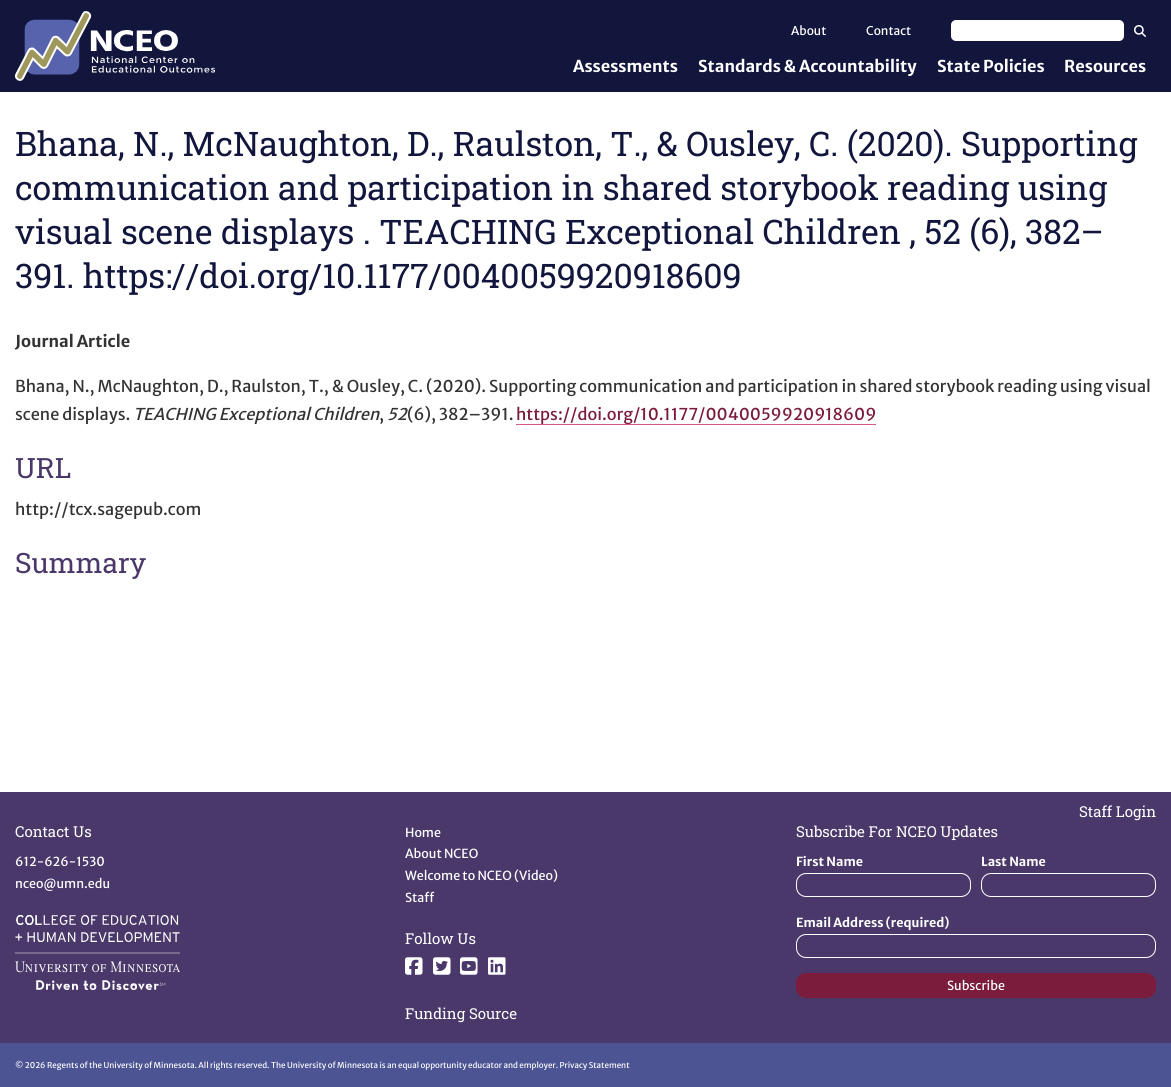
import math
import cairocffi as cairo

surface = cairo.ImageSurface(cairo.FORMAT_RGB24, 1171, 1087)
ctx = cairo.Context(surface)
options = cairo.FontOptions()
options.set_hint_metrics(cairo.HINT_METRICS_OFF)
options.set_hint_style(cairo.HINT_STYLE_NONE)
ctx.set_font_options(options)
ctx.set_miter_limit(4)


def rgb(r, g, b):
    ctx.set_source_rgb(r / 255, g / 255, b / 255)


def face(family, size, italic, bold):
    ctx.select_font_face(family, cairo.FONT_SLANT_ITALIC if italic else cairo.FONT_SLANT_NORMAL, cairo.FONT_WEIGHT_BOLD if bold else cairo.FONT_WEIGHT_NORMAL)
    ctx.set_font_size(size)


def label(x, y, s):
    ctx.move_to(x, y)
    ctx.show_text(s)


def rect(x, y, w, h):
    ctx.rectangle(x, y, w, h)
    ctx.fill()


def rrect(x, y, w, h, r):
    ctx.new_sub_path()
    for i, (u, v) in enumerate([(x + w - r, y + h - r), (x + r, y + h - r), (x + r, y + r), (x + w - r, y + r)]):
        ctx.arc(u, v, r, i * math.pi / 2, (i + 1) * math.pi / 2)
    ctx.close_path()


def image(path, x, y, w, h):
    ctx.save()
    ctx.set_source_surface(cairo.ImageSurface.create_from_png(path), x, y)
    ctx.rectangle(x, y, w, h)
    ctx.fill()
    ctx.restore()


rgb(255, 255, 255)
ctx.paint()
rgb(18, 22, 61)
rect(0, 0, 1171, 92)
image('image0.png', 15, 11, 200, 70)
face('Merriweather Sans', 12, 0, 0)
rgb(255, 255, 255)
label(791, 35, 'About')
label(866, 35, 'Contact')
rrect(951, 20, 173, 21, 5)
ctx.fill()
image('image1.png', 1134, 25, 12, 12)
face('Merriweather Sans', 16.3, 0, 1)
label(573, 72, 'Assessments')
label(698, 72, 'Standards & Accountability')
label(937, 72, 'State Policies')
label(1064, 72, 'Resources')
face('Roboto Slab', 33.8, 0, 0)
rgb(18, 22, 61)
label(15, 156, 'Bhana, N., McNaughton, D., Raulston, T., & Ousley, C. (2020). Supporting')
label(15, 200, 'communication and participation in shared storybook reading using')
label(15, 244, 'visual scene displays . TEACHING Exceptional Children , 52 (6), 382–')
label(15, 288, '391. https://doi.org/10.1177/0040059920918609')
face('Merriweather Sans', 16.3, 0, 1)
rgb(51, 51, 51)
label(15, 347, 'Journal Article')
face('Merriweather Sans', 16.3, 0, 0)
label(15, 392, 'Bhana, N., McNaughton, D., Raulston, T., & Ousley, C. (2020). Supporting communication and participation in shared storybook reading using visual')
label(15, 420, 'scene displays.')
face('Merriweather Sans', 16.3, 1, 0)
label(133, 420, 'TEACHING Exceptional Children')
face('Merriweather Sans', 16.3, 0, 0)
label(379, 420, ',')
face('Merriweather Sans', 16.3, 1, 0)
label(387, 420, '52')
face('Merriweather Sans', 16.3, 0, 0)
label(407, 420, '(6), 382–391.')
rgb(217, 87, 132)
rect(516, 424, 360, 1)
rgb(123, 28, 61)
label(516, 420, 'https://doi.org/10.1177/0040059920918609')
face('Roboto Slab', 28, 0, 0)
rgb(74, 56, 107)
label(15, 478, 'URL')
face('Merriweather Sans', 16.3, 0, 0)
rgb(51, 51, 51)
label(15, 515, 'http://tcx.sagepub.com')
face('Roboto Slab', 28, 0, 0)
rgb(74, 56, 107)
label(15, 573, 'Summary')
rect(0, 792, 1171, 251)
face('Roboto Slab', 15, 0, 0)
rgb(255, 255, 255)
label(15, 837, 'Contact Us')
face('Merriweather Sans', 12.5, 0, 0)
label(15, 866, '612-626-1530')
label(15, 888, 'nceo@umn.edu')
image('image2.png', 15, 915, 165, 75)
label(405, 837, 'Home')
label(405, 858, 'About NCEO')
label(405, 880, 'Welcome to NCEO (Video)')
label(405, 902, 'Staff')
face('Roboto Slab', 15, 0, 0)
label(405, 944, 'Follow Us')
image('image3.png', 405, 957, 18, 18)
image('image4.png', 433, 957, 18, 18)
image('image5.png', 460, 957, 18, 18)
image('image6.png', 488, 957, 18, 18)
label(405, 1019, 'Funding Source')
label(1079, 817, 'Staff Login')
label(796, 837, 'Subscribe For NCEO Updates')
face('Merriweather Sans', 12.5, 0, 1)
label(796, 866, 'First Name')
rrect(796.5, 873.5, 174, 23, 9.5)
ctx.set_line_width(1)
ctx.stroke()
label(981, 866, 'Last Name')
rrect(981.5, 873.5, 174, 23, 9.5)
ctx.stroke()
label(796, 927, 'Email Address (required)')
rrect(796.5, 934.5, 359, 23, 9.5)
ctx.stroke()
rgb(123, 28, 61)
rrect(796.5, 973.5, 359, 24, 9.5)
ctx.fill_preserve()
ctx.stroke()
face('Merriweather Sans', 12.5, 0, 0)
rgb(255, 255, 255)
label(947, 990, 'Subscribe')
rgb(76, 84, 147)
rect(0, 1043, 1171, 44)
face('Merriweather Sans', 8, 0, 0)
rgb(255, 255, 255)
label(15, 1068, '© 2026 Regents of the University of Minnesota. All rights reserved. The University of Minnesota is an equal opportunity educator and employer. Privacy Statement')
surface.write_to_png('render.png')
